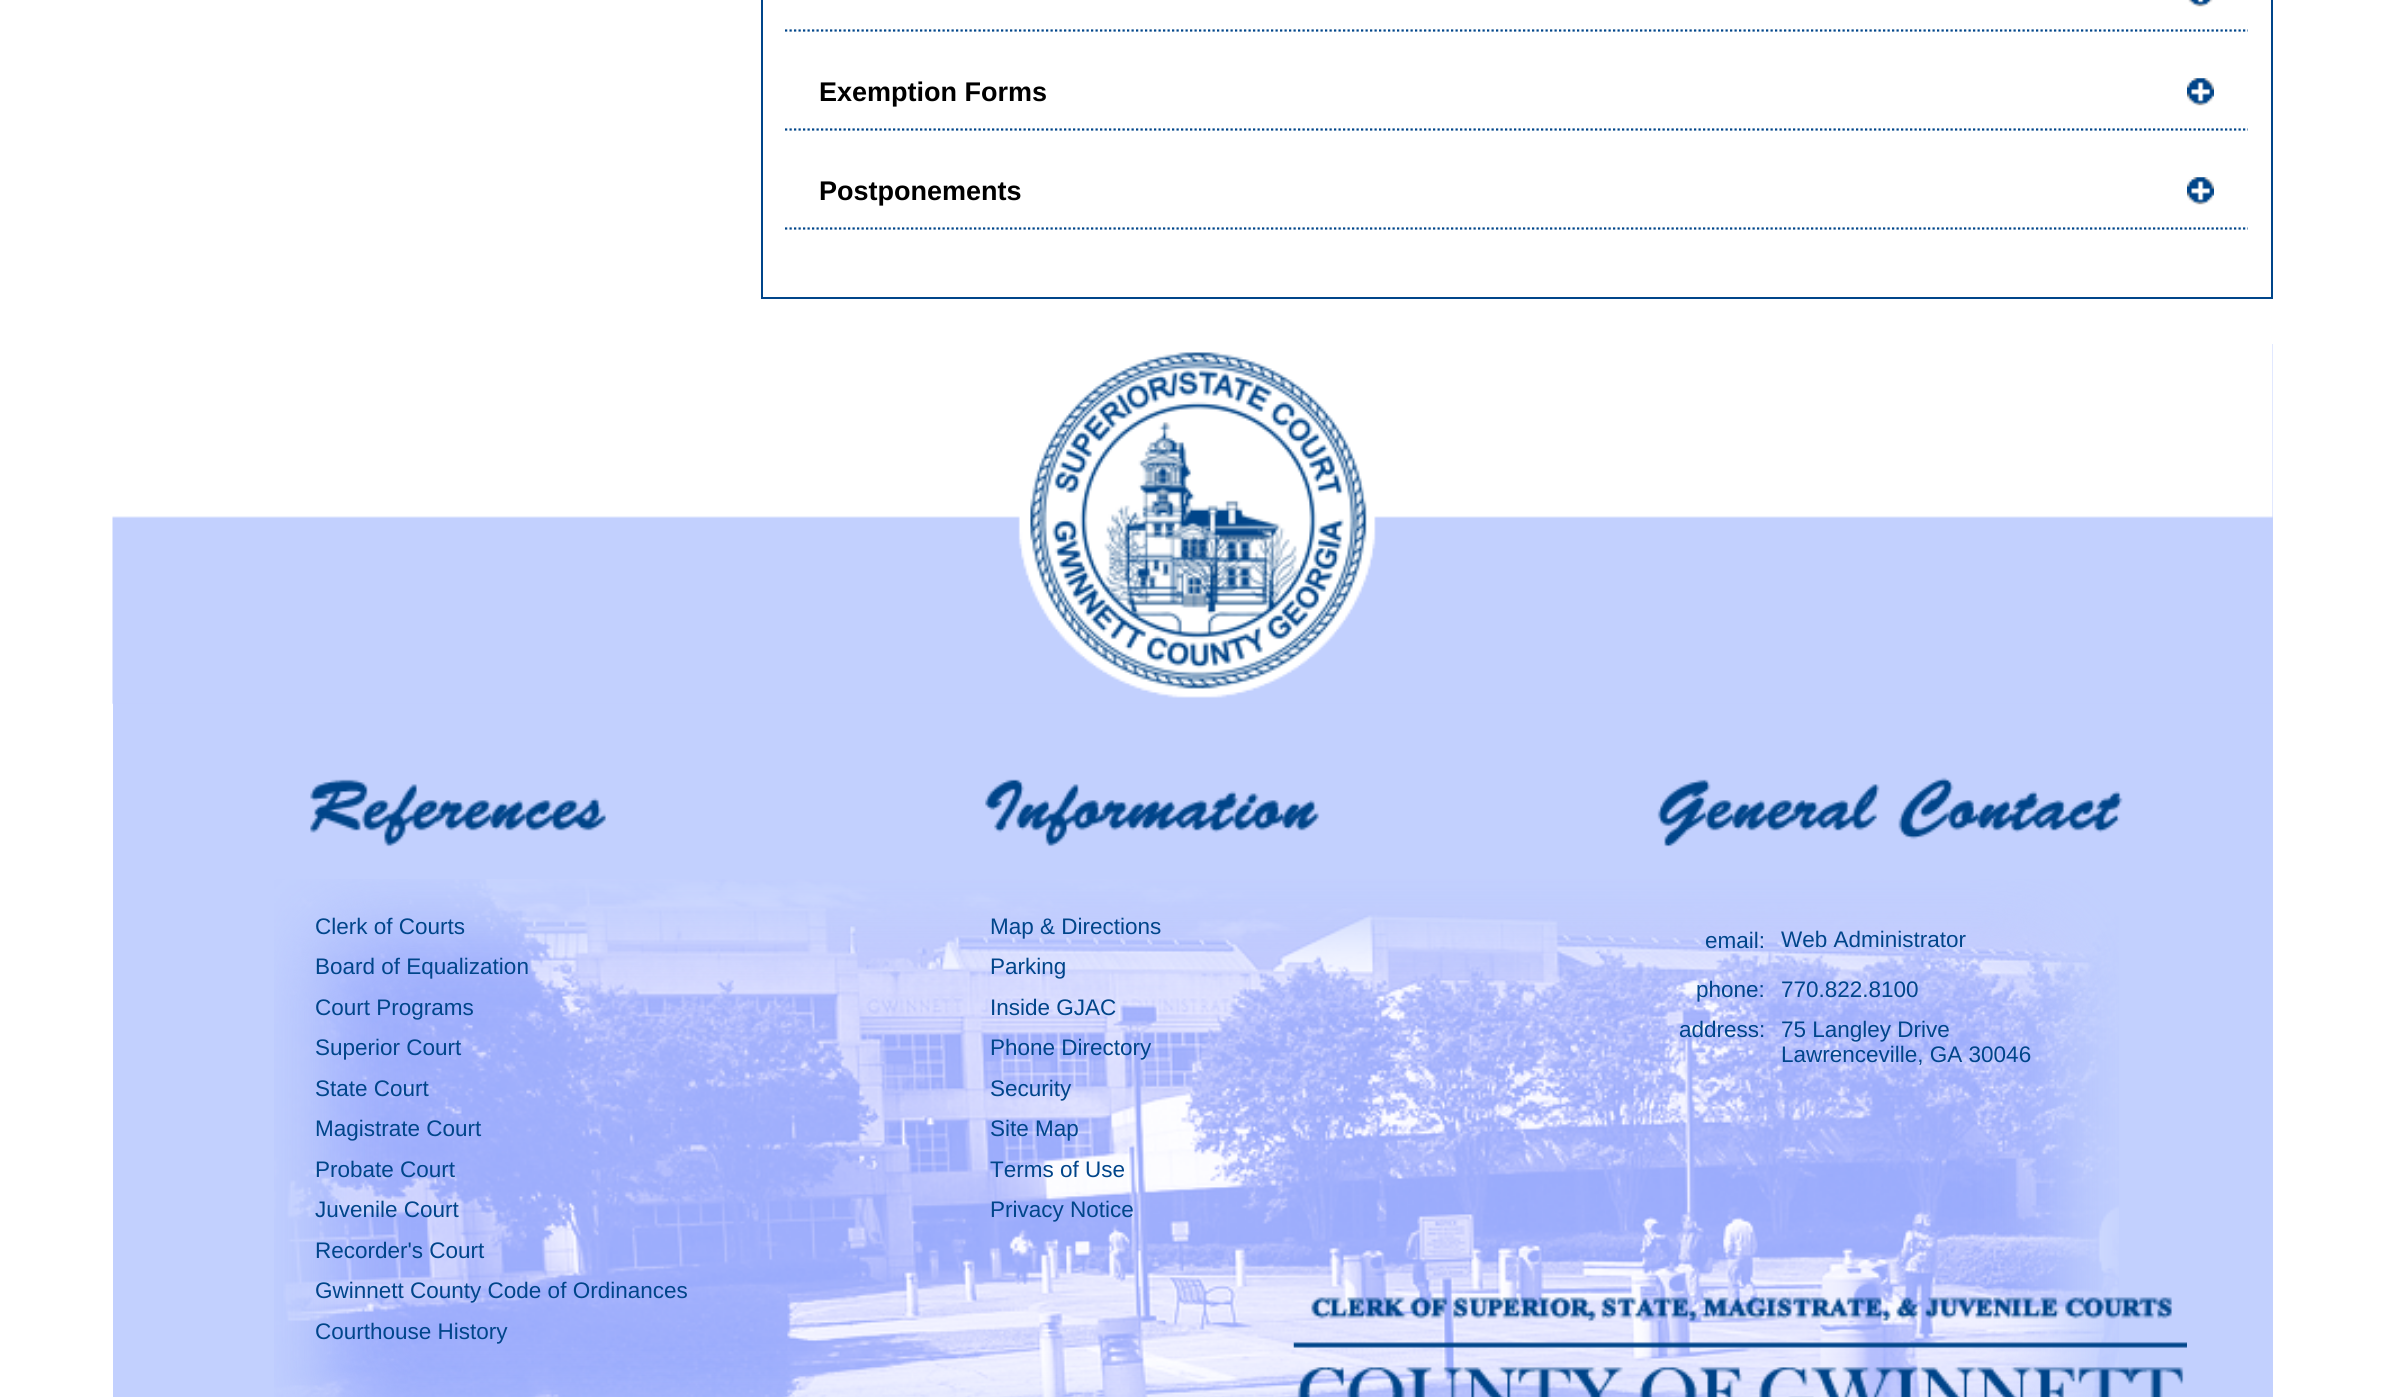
import math
import cairocffi as cairo

surface = cairo.ImageSurface(cairo.FORMAT_RGB24, 2385, 1397)
ctx = cairo.Context(surface)
options = cairo.FontOptions()
options.set_hint_metrics(cairo.HINT_METRICS_OFF)
options.set_hint_style(cairo.HINT_STYLE_NONE)
ctx.set_font_options(options)
ctx.set_miter_limit(4)


def rgb(r, g, b):
    ctx.set_source_rgb(r / 255, g / 255, b / 255)


def face(family, size, italic, bold):
    ctx.select_font_face(family, cairo.FONT_SLANT_ITALIC if italic else cairo.FONT_SLANT_NORMAL, cairo.FONT_WEIGHT_BOLD if bold else cairo.FONT_WEIGHT_NORMAL)
    ctx.set_font_size(size)


def label(x, y, s):
    ctx.move_to(x, y)
    ctx.show_text(s)


def rect(x, y, w, h):
    ctx.rectangle(x, y, w, h)
    ctx.fill()


def image(path, x, y, w, h):
    ctx.save()
    ctx.set_source_surface(cairo.ImageSurface.create_from_png(path), x, y)
    ctx.rectangle(x, y, w, h)
    ctx.fill()
    ctx.restore()


rgb(255, 255, 255)
ctx.paint()
ctx.rectangle(762, -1, 1510, 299)
rgb(0, 69, 138)
ctx.stroke()
ctx.new_path()
ctx.move_to(785, 30.5)
ctx.line_to(2248, 30.5)
ctx.set_line_width(2.2)
ctx.set_dash([2.25, 2.25])
ctx.stroke()
image('image0.png', 2188, 0, 25, 7)
ctx.new_path()
ctx.move_to(785, 129.5)
ctx.line_to(2248, 129.5)
ctx.stroke()
image('image1.png', 2187, 78, 27, 28)
face('Liberation Sans', 27, 0, 1)
rgb(0, 0, 0)
label(819, 101, 'Exemption Forms')
ctx.new_path()
ctx.move_to(785, 228.5)
ctx.line_to(2248, 228.5)
rgb(0, 69, 138)
ctx.stroke()
image('image2.png', 2187, 177, 27, 28)
rgb(0, 0, 0)
label(819, 200, 'Postponements')
rgb(194, 208, 254)
rect(113, 344, 2160, 1053)
image('image3.png', 274, 879, 1845, 518)
image('image4.png', 112, 344, 2161, 360)
image('image5.png', 310, 779, 296, 68)
face('Liberation Sans', 22.5, 0, 0)
rgb(0, 69, 138)
label(315, 934, 'Clerk of Courts')
label(315, 974, 'Board of Equalization')
label(315, 1015, 'Court Programs')
label(315, 1055, 'Superior Court')
label(315, 1096, 'State Court')
label(315, 1136, 'Magistrate Court')
label(315, 1177, 'Probate Court')
label(315, 1217, 'Juvenile Court')
label(315, 1258, 'Recorder\'s Court')
label(315, 1298, 'Gwinnett County Code of Ordinances')
label(315, 1339, 'Courthouse History')
image('image6.png', 985, 779, 335, 68)
label(990, 934, 'Map & Directions')
label(990, 974, 'Parking')
label(990, 1015, 'Inside GJAC')
label(990, 1055, 'Phone Directory')
label(990, 1096, 'Security')
label(990, 1136, 'Site Map')
label(990, 1177, 'Terms of Use')
label(990, 1217, 'Privacy Notice')
image('image7.png', 1657, 777, 466, 70)
label(1705, 948, 'email:')
label(1781, 947, 'Web Administrator')
label(1696, 997, 'phone:')
label(1781, 997, '770.822.8100')
label(1679, 1037, 'address:')
label(1781, 1037, '75 Langley Drive')
label(1781, 1062, 'Lawrenceville, GA 30046')
image('image8.png', 1293, 1297, 894, 100)
surface.write_to_png('render.png')
